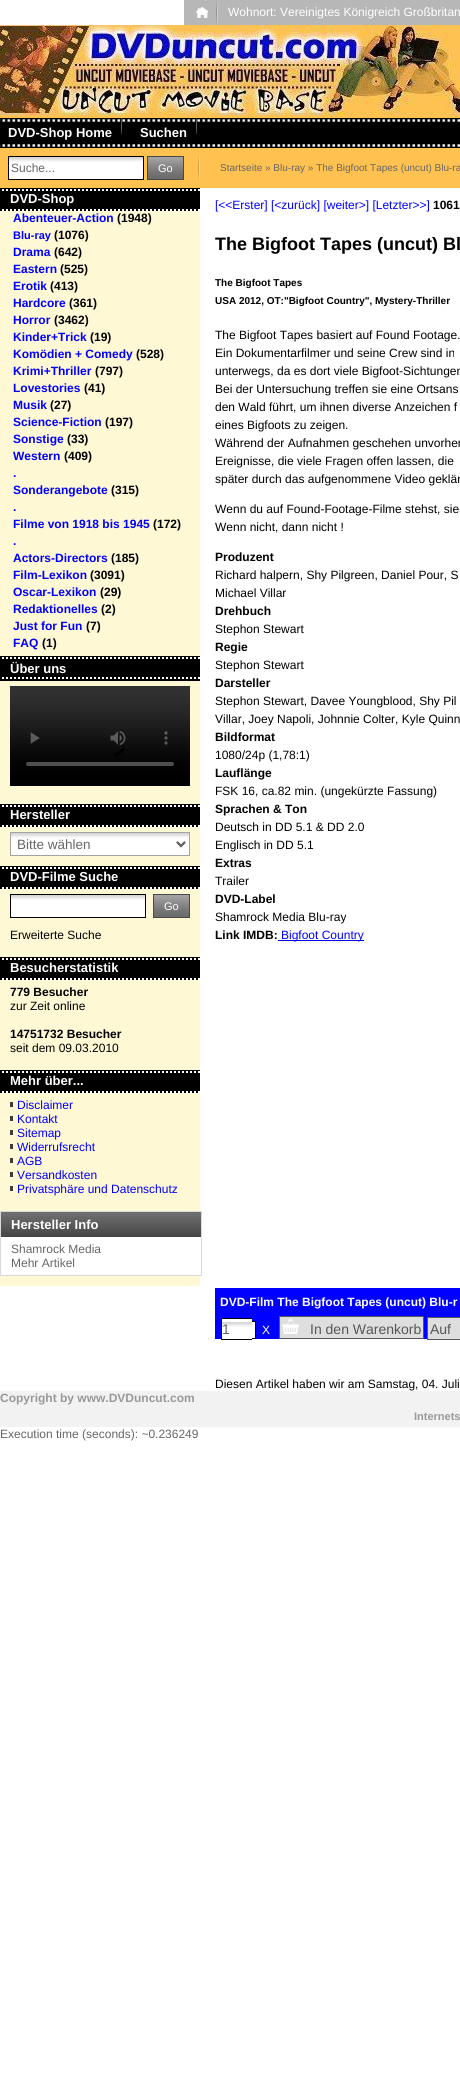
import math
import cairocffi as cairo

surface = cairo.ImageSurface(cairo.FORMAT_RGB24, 460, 2092)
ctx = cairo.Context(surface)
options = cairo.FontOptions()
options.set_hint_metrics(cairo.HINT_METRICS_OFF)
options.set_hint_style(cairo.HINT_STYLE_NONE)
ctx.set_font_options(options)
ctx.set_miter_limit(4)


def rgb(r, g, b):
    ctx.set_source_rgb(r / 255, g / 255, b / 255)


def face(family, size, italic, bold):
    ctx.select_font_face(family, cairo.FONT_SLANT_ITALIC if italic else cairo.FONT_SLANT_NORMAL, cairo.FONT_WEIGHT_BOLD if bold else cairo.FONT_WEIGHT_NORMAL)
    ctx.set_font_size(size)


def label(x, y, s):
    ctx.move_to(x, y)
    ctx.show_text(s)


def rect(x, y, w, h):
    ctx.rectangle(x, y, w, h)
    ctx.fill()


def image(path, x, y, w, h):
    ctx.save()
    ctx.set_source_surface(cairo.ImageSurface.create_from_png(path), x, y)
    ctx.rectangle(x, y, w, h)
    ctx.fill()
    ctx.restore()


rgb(255, 255, 255)
ctx.paint()
rgb(183, 183, 183)
rect(184, 0, 276, 25)
image('image0.png', 216, 0, 2, 25)
image('image1.png', 196, 7, 12, 11)
face('Liberation Sans', 12, 0, 0)
rgb(255, 255, 255)
label(228, 16, 'Wohnort: Vereinigtes Königreich Großbritan')
rgb(255, 194, 80)
rect(0, 115, 460, 3)
image('image2.png', 0, 25, 460, 90)
image('image3.png', 0, 118, 460, 30)
image('image4.png', 121, 118, 1, 16)
face('Liberation Sans', 13, 0, 1)
rgb(255, 255, 255)
label(8, 137, 'DVD-Shop Home')
image('image4.png', 196, 118, 1, 16)
label(140, 137, 'Suchen')
rgb(255, 194, 80)
rect(0, 148, 460, 40)
image('image5.png', 198, 156, 2, 24)
rgb(255, 255, 255)
rect(9, 157, 134, 22)
image('image6.png', 9, 157, 134, 5)
ctx.rectangle(8.5, 156.5, 135, 23)
rgb(0, 0, 0)
ctx.set_line_width(1)
ctx.stroke()
face('Liberation Sans', 12, 0, 0)
rgb(102, 102, 102)
label(11, 172, 'Suche...')
rgb(200, 200, 200)
rect(148, 157, 35, 22)
image('image7.png', 148, 157, 35, 22)
ctx.rectangle(147.5, 156.5, 36, 23)
rgb(72, 72, 72)
ctx.stroke()
face('Liberation Sans', 11, 0, 0)
rgb(255, 255, 255)
label(158, 172, 'Go')
face('Liberation Sans', 10, 0, 0)
rgb(102, 102, 102)
label(220, 171, 'Startseite » Blu-ray » The Bigfoot Tapes (uncut) Blu-ra')
rgb(255, 248, 212)
rect(0, 211, 200, 1075)
image('image8.png', 0, 188, 200, 23)
face('Liberation Sans', 13, 0, 1)
rgb(255, 255, 255)
label(10, 203, 'DVD-Shop')
face('Liberation Sans', 12, 0, 1)
rgb(0, 0, 255)
label(13, 222, 'Abenteuer-Action')
rgb(0, 0, 0)
label(117, 222, '(1948)')
face('Liberation Sans', 11, 0, 1)
rgb(0, 0, 255)
label(13, 239, 'Blu-ray')
face('Liberation Sans', 12, 0, 1)
rgb(0, 0, 0)
label(54, 239, '(1076)')
rgb(0, 0, 255)
label(13, 256, 'Drama')
rgb(0, 0, 0)
label(54, 256, '(642)')
rgb(0, 0, 255)
label(13, 273, 'Eastern')
rgb(0, 0, 0)
label(60, 273, '(525)')
rgb(0, 0, 255)
label(13, 290, 'Erotik')
rgb(0, 0, 0)
label(50, 290, '(413)')
rgb(0, 0, 255)
label(13, 307, 'Hardcore')
rgb(0, 0, 0)
label(69, 307, '(361)')
rgb(0, 0, 255)
label(13, 324, 'Horror')
rgb(0, 0, 0)
label(54, 324, '(3462)')
rgb(0, 0, 255)
label(13, 341, 'Kinder+Trick')
rgb(0, 0, 0)
label(90, 341, '(19)')
rgb(0, 0, 255)
label(13, 358, 'Komödien + Comedy')
rgb(0, 0, 0)
label(136, 358, '(528)')
rgb(0, 0, 255)
label(13, 375, 'Krimi+Thriller')
rgb(0, 0, 0)
label(95, 375, '(797)')
rgb(0, 0, 255)
label(13, 392, 'Lovestories')
rgb(0, 0, 0)
label(84, 392, '(41)')
rgb(0, 0, 255)
label(13, 409, 'Musik')
rgb(0, 0, 0)
label(50, 409, '(27)')
rgb(0, 0, 255)
label(13, 426, 'Science-Fiction')
rgb(0, 0, 0)
label(105, 426, '(197)')
rgb(0, 0, 255)
label(13, 443, 'Sonstige')
rgb(0, 0, 0)
label(67, 443, '(33)')
rgb(0, 0, 255)
label(13, 460, 'Western')
rgb(0, 0, 0)
label(64, 460, '(409)')
rgb(0, 0, 255)
label(13, 477, '.')
label(13, 494, 'Sonderangebote')
rgb(0, 0, 0)
label(111, 494, '(315)')
rgb(0, 0, 255)
label(13, 511, '.')
label(13, 528, 'Filme von 1918 bis 1945')
rgb(0, 0, 0)
label(153, 528, '(172)')
rgb(0, 0, 255)
label(13, 545, '.')
label(13, 562, 'Actors-Directors')
rgb(0, 0, 0)
label(111, 562, '(185)')
rgb(0, 0, 255)
label(13, 579, 'Film-Lexikon')
rgb(0, 0, 0)
label(90, 579, '(3091)')
rgb(0, 0, 255)
label(13, 596, 'Oscar-Lexikon')
rgb(0, 0, 0)
label(100, 596, '(29)')
rgb(0, 0, 255)
label(13, 613, 'Redaktionelles')
rgb(0, 0, 0)
label(101, 613, '(2)')
rgb(0, 0, 255)
label(13, 630, 'Just for Fun')
rgb(0, 0, 0)
label(86, 630, '(7)')
rgb(0, 0, 255)
label(13, 647, 'FAQ')
rgb(0, 0, 0)
label(42, 647, '(1)')
image('image9.png', 0, 656, 200, 25)
face('Liberation Sans', 13, 0, 1)
rgb(255, 255, 255)
label(10, 673, 'Über uns')
image('image10.png', 10, 686, 180, 100)
image('image8.png', 0, 804, 200, 23)
label(10, 819, 'Hersteller')
rect(11, 833, 178, 22)
image('image11.png', 11, 833, 178, 15)
ctx.rectangle(10.5, 832.5, 179, 23)
rgb(163, 163, 163)
ctx.stroke()
ctx.new_path()
ctx.move_to(177, 842)
ctx.line_to(181, 846)
ctx.line_to(185, 842)
rgb(102, 102, 102)
ctx.set_line_width(2)
ctx.stroke()
face('Liberation Sans', 13.5, 0, 0)
label(17, 849, 'Bitte wählen')
image('image8.png', 0, 866, 200, 23)
face('Liberation Sans', 13, 0, 1)
rgb(255, 255, 255)
label(10, 881, 'DVD-Filme Suche')
rect(11, 895, 134, 22)
image('image6.png', 11, 895, 134, 5)
ctx.rectangle(10.5, 894.5, 135, 23)
rgb(0, 0, 0)
ctx.set_line_width(1)
ctx.stroke()
rgb(200, 200, 200)
rect(154, 895, 35, 22)
image('image7.png', 154, 895, 35, 22)
ctx.rectangle(153.5, 894.5, 36, 23)
rgb(72, 72, 72)
ctx.stroke()
face('Liberation Sans', 11, 0, 0)
rgb(255, 255, 255)
label(164, 910, 'Go')
face('Liberation Sans', 12, 0, 0)
rgb(0, 0, 0)
label(10, 939, 'Erweiterte Suche')
image('image8.png', 0, 957, 200, 23)
face('Liberation Sans', 13, 0, 1)
rgb(255, 255, 255)
label(10, 972, 'Besucherstatistik')
face('Liberation Sans', 12, 0, 1)
rgb(0, 0, 0)
label(10, 996, '779 Besucher')
face('Liberation Sans', 12, 0, 0)
label(10, 1010, 'zur Zeit online')
face('Liberation Sans', 12, 0, 1)
label(10, 1038, '14751732 Besucher')
face('Liberation Sans', 12, 0, 0)
label(10, 1052, 'seit dem 09.03.2010')
image('image8.png', 0, 1070, 200, 23)
face('Liberation Sans', 13, 0, 1)
rgb(255, 255, 255)
label(10, 1085, 'Mehr über...')
rgb(62, 60, 61)
rect(10, 1102, 3, 5)
face('Liberation Sans', 12, 0, 0)
rgb(0, 0, 255)
label(17, 1109, 'Disclaimer')
rgb(62, 60, 61)
rect(10, 1116, 3, 5)
rgb(0, 0, 255)
label(17, 1123, 'Kontakt')
rgb(62, 60, 61)
rect(10, 1130, 3, 5)
rgb(0, 0, 255)
label(17, 1137, 'Sitemap')
rgb(62, 60, 61)
rect(10, 1144, 3, 5)
rgb(0, 0, 255)
label(17, 1151, 'Widerrufsrecht')
rgb(62, 60, 61)
rect(10, 1158, 3, 5)
rgb(0, 0, 255)
label(17, 1165, 'AGB')
rgb(62, 60, 61)
rect(10, 1172, 3, 5)
rgb(0, 0, 255)
label(17, 1179, 'Versandkosten')
rgb(62, 60, 61)
rect(10, 1186, 3, 5)
rgb(0, 0, 255)
label(17, 1193, 'Privatsphäre und Datenschutz')
rgb(255, 255, 255)
rect(1, 1237, 199, 38)
ctx.rectangle(0.5, 1211.5, 201, 64)
rgb(218, 218, 218)
ctx.stroke()
rgb(109, 109, 109)
rect(1, 1212, 200, 25)
image('image12.png', 1, 1216, 200, 21)
face('Liberation Sans', 13, 0, 1)
rgb(255, 255, 255)
label(11, 1229, 'Hersteller Info')
face('Liberation Sans', 12, 0, 0)
rgb(102, 102, 102)
label(11, 1253, 'Shamrock Media')
label(11, 1267, 'Mehr Artikel')
rgb(0, 0, 255)
label(215, 209, '[<<Erster] [<zurück] [weiter>] [Letzter>>]')
face('Liberation Sans', 12, 0, 1)
rgb(0, 0, 0)
label(433, 209, '1061')
face('Liberation Sans', 18, 0, 1)
label(215, 250, 'The Bigfoot Tapes (uncut) Bl')
face('Liberation Sans', 10, 0, 1)
label(215, 286, 'The Bigfoot Tapes')
label(215, 304, 'USA 2012, OT:"Bigfoot Country", Mystery-Thriller')
face('Liberation Sans', 12, 0, 0)
label(215, 339, 'The Bigfoot Tapes basiert auf Found Footage.')
label(215, 357, 'Ein Dokumentarfilmer und seine Crew sind in')
label(215, 375, 'unterwegs, da es dort viele Bigfoot-Sichtungen')
label(215, 393, 'Bei der Untersuchung treffen sie eine Ortsans')
label(215, 411, 'den Wald führt, um ihnen diverse Anzeichen f')
label(215, 429, 'eines Bigfoots zu zeigen.')
label(215, 447, 'Während der Aufnahmen geschehen unvorher')
label(215, 465, 'Ereignisse, die viele Fragen offen lassen, die')
label(215, 483, 'später durch das aufgenommene Video geklär')
label(215, 513, 'Wenn du auf Found-Footage-Filme stehst, sie')
label(215, 531, 'Wenn nicht, dann nicht !')
face('Liberation Sans', 12, 0, 1)
label(215, 561, 'Produzent')
face('Liberation Sans', 12, 0, 0)
label(215, 579, 'Richard halpern, Shy Pilgreen, Daniel Pour, S')
label(215, 597, 'Michael Villar')
face('Liberation Sans', 12, 0, 1)
label(215, 615, 'Drehbuch')
face('Liberation Sans', 12, 0, 0)
label(215, 633, 'Stephon Stewart')
face('Liberation Sans', 12, 0, 1)
label(215, 651, 'Regie')
face('Liberation Sans', 12, 0, 0)
label(215, 669, 'Stephon Stewart')
face('Liberation Sans', 12, 0, 1)
label(215, 687, 'Darsteller')
face('Liberation Sans', 12, 0, 0)
label(215, 705, 'Stephon Stewart, Davee Youngblood, Shy Pil')
label(215, 723, 'Villar, Joey Napoli, Johnnie Colter, Kyle Quinn')
face('Liberation Sans', 12, 0, 1)
label(215, 741, 'Bildformat')
face('Liberation Sans', 12, 0, 0)
label(215, 759, '1080/24p (1,78:1)')
face('Liberation Sans', 12, 0, 1)
label(215, 777, 'Lauflänge')
face('Liberation Sans', 12, 0, 0)
label(215, 795, 'FSK 16, ca.82 min. (ungekürzte Fassung)')
face('Liberation Sans', 12, 0, 1)
label(215, 813, 'Sprachen & Ton')
face('Liberation Sans', 12, 0, 0)
label(215, 831, 'Deutsch in DD 5.1 & DD 2.0')
label(215, 849, 'Englisch in DD 5.1')
face('Liberation Sans', 12, 0, 1)
label(215, 867, 'Extras')
face('Liberation Sans', 12, 0, 0)
label(215, 885, 'Trailer')
face('Liberation Sans', 12, 0, 1)
label(215, 903, 'DVD-Label')
face('Liberation Sans', 12, 0, 0)
label(215, 921, 'Shamrock Media Blu-ray')
face('Liberation Sans', 12, 0, 1)
label(215, 939, 'Link IMDB:')
rgb(0, 0, 238)
rect(278, 940, 86, 1)
face('Liberation Sans', 12, 0, 0)
rgb(0, 0, 255)
label(281, 939, 'Bigfoot Country')
rect(215, 1288, 245, 51)
face('Liberation Sans', 12, 0, 1)
rgb(255, 255, 255)
label(220, 1306, 'DVD-Film The Bigfoot Tapes (uncut) Blu-r')
rect(222, 1319, 30, 20)
image('image13.png', 222, 1322, 30, 5)
rgb(0, 0, 0)
rect(221, 1318, 31, 1)
rect(221, 1339, 31, 1)
rect(221, 1318, 1, 22)
rgb(255, 255, 255)
rect(252, 1321, 3, 18)
rgb(0, 0, 0)
rect(252, 1321, 4, 1)
rect(255, 1321, 1, 18)
rect(252, 1338, 4, 1)
face('Liberation Sans', 14, 0, 0)
rgb(102, 102, 102)
label(222, 1334, '1')
face('Liberation Sans', 12, 0, 0)
rgb(255, 255, 255)
label(262, 1334, 'X')
rgb(222, 222, 222)
ctx.rectangle(279.5, 1316.5, 144, 22)
ctx.fill_preserve()
rgb(87, 87, 87)
ctx.stroke()
image('image14.png', 282, 1319, 17, 15)
face('Liberation Sans', 14, 0, 0)
label(310, 1334, 'In den Warenkorb')
rgb(222, 222, 222)
ctx.rectangle(427.5, 1317.5, 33, 22)
ctx.fill_preserve()
rgb(87, 87, 87)
ctx.stroke()
label(430, 1334, 'Auf')
face('Liberation Sans', 12, 0, 0)
rgb(0, 0, 0)
label(215, 1388, 'Diesen Artikel haben wir am Samstag, 04. Juli')
rgb(242, 242, 242)
rect(0, 1391, 460, 36)
face('Liberation Sans', 12, 0, 1)
rgb(153, 153, 153)
label(0, 1402, 'Copyright by www.DVDuncut.com')
face('Liberation Sans', 11, 0, 1)
label(414, 1420, 'Internets')
face('Liberation Sans', 12, 0, 0)
rgb(102, 102, 102)
label(0, 1438, 'Execution time (seconds): ~0.236249')
surface.write_to_png('render.png')
